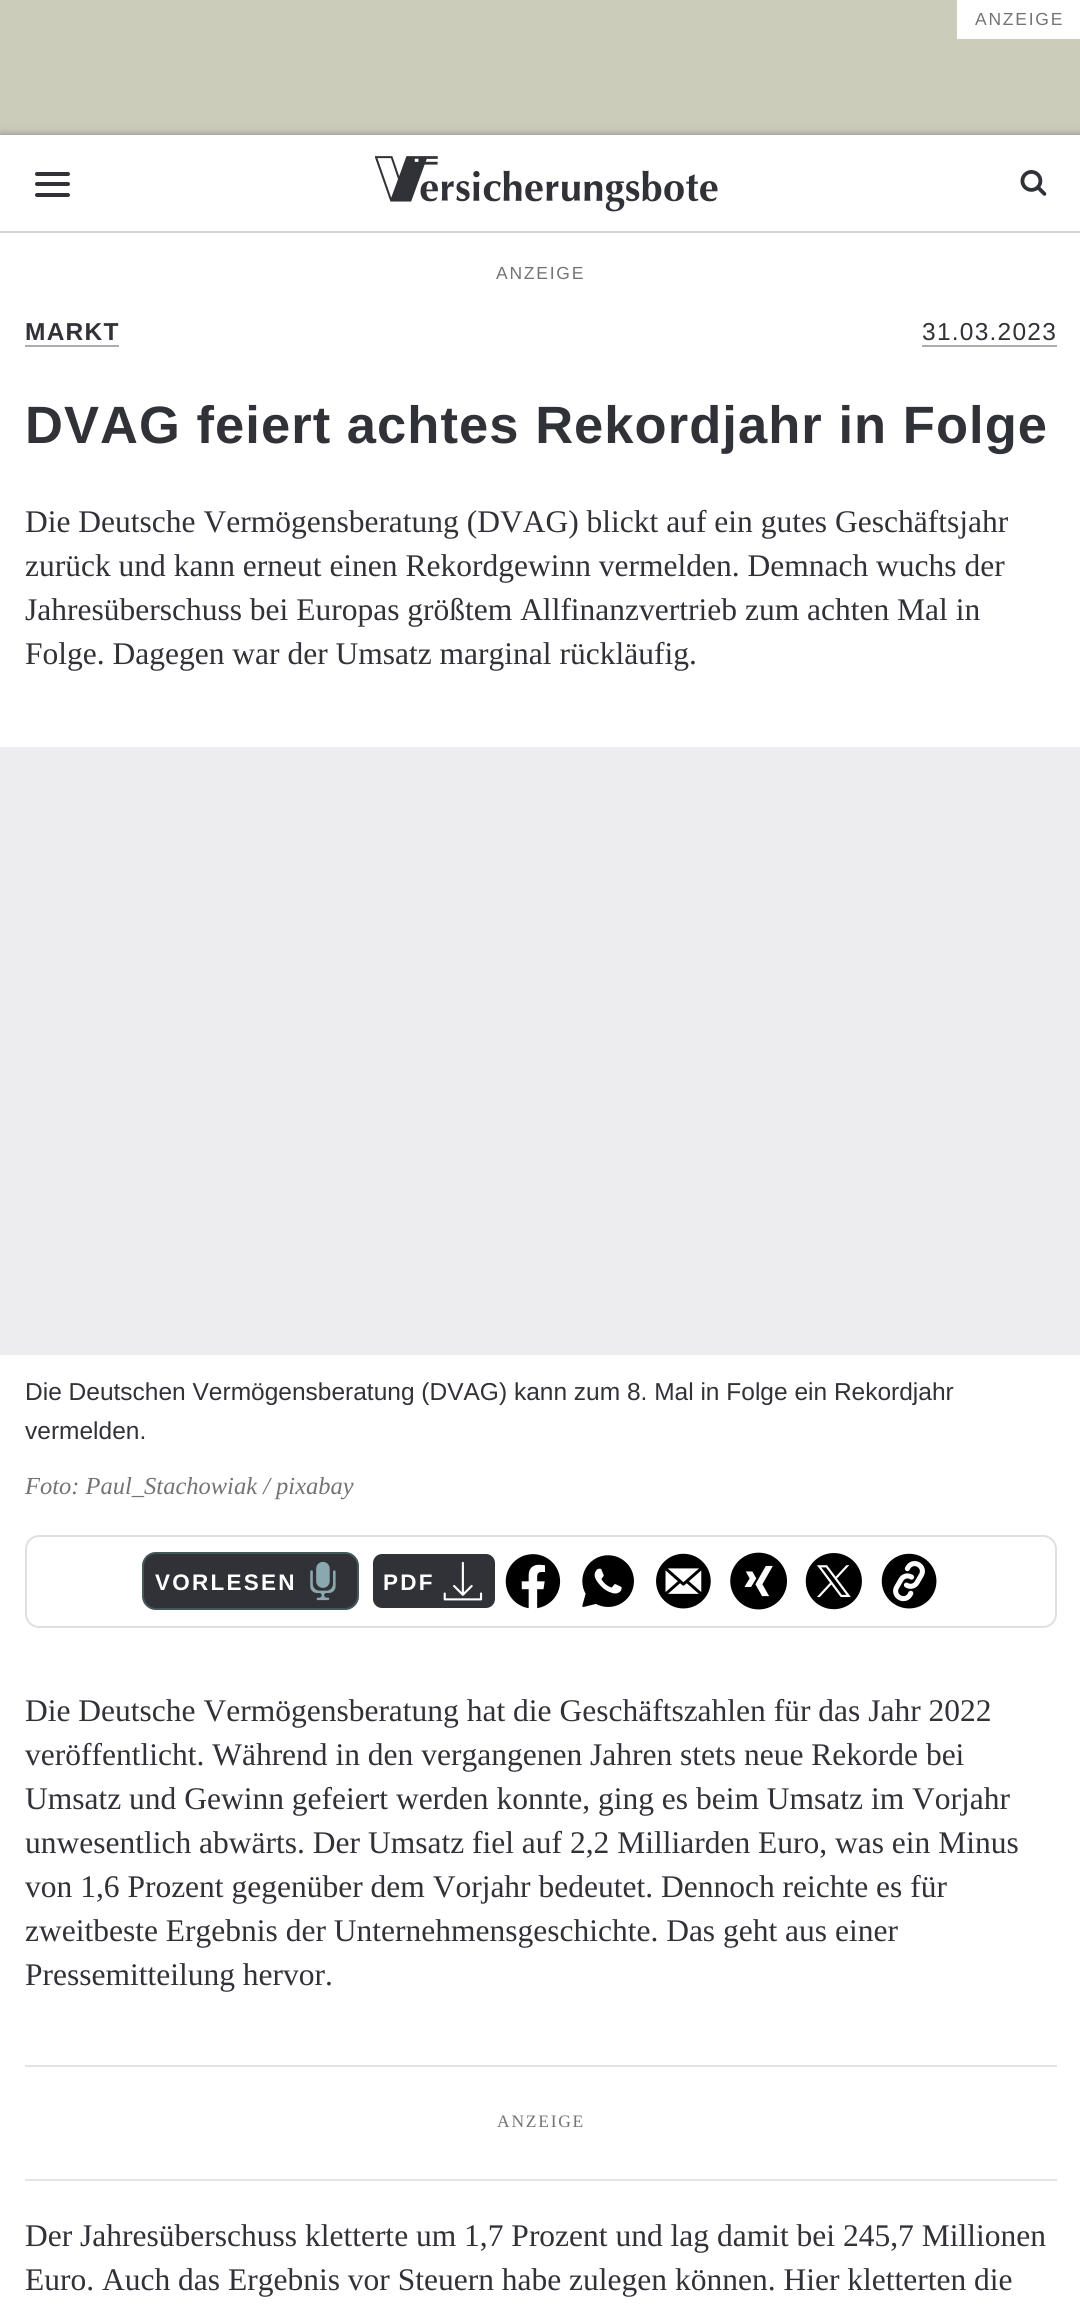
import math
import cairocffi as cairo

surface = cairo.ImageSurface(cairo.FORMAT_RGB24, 1080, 2308)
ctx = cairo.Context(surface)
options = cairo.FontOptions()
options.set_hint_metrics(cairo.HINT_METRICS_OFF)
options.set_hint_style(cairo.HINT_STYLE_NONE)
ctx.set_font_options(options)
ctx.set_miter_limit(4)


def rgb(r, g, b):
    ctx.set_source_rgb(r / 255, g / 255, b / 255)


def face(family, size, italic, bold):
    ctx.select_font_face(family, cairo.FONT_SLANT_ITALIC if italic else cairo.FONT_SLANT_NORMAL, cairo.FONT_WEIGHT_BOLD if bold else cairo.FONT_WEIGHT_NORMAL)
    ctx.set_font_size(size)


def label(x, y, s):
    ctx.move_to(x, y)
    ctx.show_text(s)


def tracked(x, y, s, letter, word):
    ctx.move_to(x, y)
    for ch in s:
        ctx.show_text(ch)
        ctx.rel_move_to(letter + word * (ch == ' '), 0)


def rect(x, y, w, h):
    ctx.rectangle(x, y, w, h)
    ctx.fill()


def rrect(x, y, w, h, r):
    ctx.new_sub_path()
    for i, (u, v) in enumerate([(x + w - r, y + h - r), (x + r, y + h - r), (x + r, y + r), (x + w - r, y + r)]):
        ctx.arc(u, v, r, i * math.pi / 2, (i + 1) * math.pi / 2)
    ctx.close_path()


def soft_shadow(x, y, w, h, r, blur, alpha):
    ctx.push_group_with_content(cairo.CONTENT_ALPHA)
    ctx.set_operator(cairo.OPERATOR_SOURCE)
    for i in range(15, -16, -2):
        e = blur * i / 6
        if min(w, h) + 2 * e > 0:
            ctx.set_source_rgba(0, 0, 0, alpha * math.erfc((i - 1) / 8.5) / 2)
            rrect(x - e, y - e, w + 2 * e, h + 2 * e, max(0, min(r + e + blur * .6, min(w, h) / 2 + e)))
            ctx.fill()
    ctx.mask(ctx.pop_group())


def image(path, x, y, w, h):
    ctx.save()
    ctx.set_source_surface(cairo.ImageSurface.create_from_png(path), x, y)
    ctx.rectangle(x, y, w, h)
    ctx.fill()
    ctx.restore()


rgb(204, 204, 187)
ctx.paint()
rgb(255, 255, 255)
rect(957, 0, 123, 39)
face('Liberation Sans', 17.5, 0, 0)
rgb(115, 116, 118)
tracked(975, 25, 'ANZEIGE', 1.75, 0)
rgb(65, 70, 77)
soft_shadow(0, 135, 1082, 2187, 0, 4.5, 0.5)
rgb(255, 255, 255)
rect(0, 135, 1080, 2173)
rgb(210, 210, 217)
rect(0, 231, 1080, 2)
rgb(49, 50, 56)
rrect(35, 182, 35, 4, 2)
ctx.fill()
rrect(35, 172, 35, 4, 2)
ctx.fill()
rrect(35, 193, 35, 4, 2)
ctx.fill()
image('image0.png', 375, 156, 343, 56)
image('image1.png', 1020, 170, 27, 26)
rgb(115, 116, 118)
tracked(496, 279, 'ANZEIGE', 1.75, 0)
face('Liberation Sans', 24.5, 0, 1)
rgb(49, 50, 56)
tracked(25, 340, 'MARKT', 1.25, 0)
rgb(173, 173, 175)
rect(25, 345, 94, 2)
face('Liberation Sans', 24.5, 0, 0)
rgb(49, 50, 56)
tracked(922, 340, '31.03.2023', 1.25, 0)
rgb(173, 173, 175)
rect(922, 345, 135, 2)
face('Liberation Sans', 52.5, 0, 1)
rgb(49, 50, 56)
tracked(25, 443, 'DVAG feiert achtes Rekordjahr in Folge', 1.05, 0)
face('Liberation Serif', 31.5, 0, 0)
label(25, 532, 'Die Deutsche Vermögensberatung (DVAG) blickt auf ein gutes Geschäftsjahr')
label(25, 576, 'zurück und kann erneut einen Rekordgewinn vermelden. Demnach wuchs der')
label(25, 620, 'Jahresüberschuss bei Europas größtem Allfinanzvertrieb zum achten Mal in')
label(25, 664, 'Folge. Dagegen war der Umsatz marginal rückläufig.')
rgb(237, 237, 240)
rect(0, 747, 1080, 608)
face('Liberation Sans', 24.5, 0, 0)
rgb(49, 50, 56)
label(25, 1400, 'Die Deutschen Vermögensberatung (DVAG) kann zum 8. Mal in Folge ein Rekordjahr')
label(25, 1439, 'vermelden.')
face('Liberation Serif', 24.5, 1, 0)
rgb(115, 116, 118)
label(25, 1494, 'Foto: Paul_Stachowiak / pixabay')
rrect(26, 1536, 1030, 91, 13)
rgb(224, 224, 224)
ctx.stroke()
rgb(49, 50, 56)
rrect(142, 1552, 217, 58, 14)
ctx.fill()
rrect(143, 1553, 215, 56, 13)
ctx.set_source_rgba(0.451, 0.706, 0.663, 0.29)
ctx.stroke()
face('Liberation Sans', 22.5, 0, 1)
rgb(255, 255, 255)
tracked(155, 1590, 'VORLESEN', 2.25, 0)
image('image2.png', 310, 1561, 26, 40)
rgb(49, 50, 56)
rrect(373, 1554, 122, 54, 9)
ctx.fill()
rgb(255, 255, 255)
tracked(383, 1590, 'PDF', 2.25, 0)
image('image3.png', 443, 1561, 40, 40)
image('image4.png', 505, 1554, 56, 55)
image('image5.png', 582, 1555, 52, 52)
image('image6.png', 656, 1553, 55, 56)
image('image7.png', 730, 1552, 57, 58)
image('image8.png', 805, 1553, 57, 57)
image('image9.png', 881, 1553, 56, 56)
face('Liberation Serif', 31.5, 0, 0)
rgb(49, 50, 56)
label(25, 1721, 'Die Deutsche Vermögensberatung hat die Geschäftszahlen für das Jahr 2022')
label(25, 1765, 'veröffentlicht. Während in den vergangenen Jahren stets neue Rekorde bei')
label(25, 1809, 'Umsatz und Gewinn gefeiert werden konnte, ging es beim Umsatz im Vorjahr')
label(25, 1853, 'unwesentlich abwärts. Der Umsatz fiel auf 2,2 Milliarden Euro, was ein Minus')
label(25, 1897, 'von 1,6 Prozent gegenüber dem Vorjahr bedeutet. Dennoch reichte es für')
label(25, 1941, 'zweitbeste Ergebnis der Unternehmensgeschichte. Das geht aus einer')
label(25, 1985, 'Pressemitteilung hervor.')
rgb(227, 227, 227)
rect(25, 2065, 1032, 2)
rect(25, 2179, 1032, 2)
face('Liberation Serif', 17.5, 0, 0)
rgb(115, 116, 118)
tracked(497, 2127, 'ANZEIGE', 1.75, 0)
face('Liberation Serif', 31.5, 0, 0)
rgb(49, 50, 56)
label(25, 2246, 'Der Jahresüberschuss kletterte um 1,7 Prozent und lag damit bei 245,7 Millionen')
label(25, 2290, 'Euro. Auch das Ergebnis vor Steuern habe zulegen können. Hier kletterten die')
surface.write_to_png('render.png')
